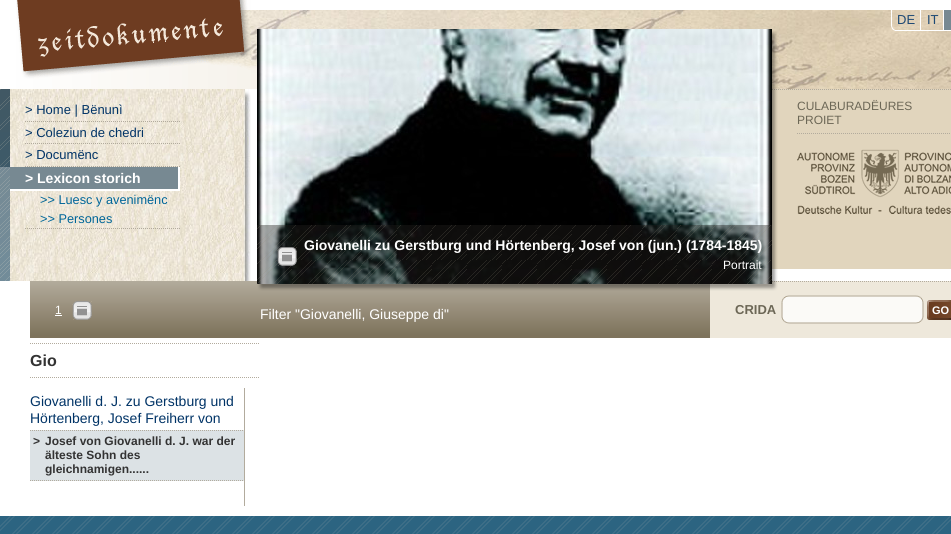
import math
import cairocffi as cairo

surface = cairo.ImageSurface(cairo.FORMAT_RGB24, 951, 534)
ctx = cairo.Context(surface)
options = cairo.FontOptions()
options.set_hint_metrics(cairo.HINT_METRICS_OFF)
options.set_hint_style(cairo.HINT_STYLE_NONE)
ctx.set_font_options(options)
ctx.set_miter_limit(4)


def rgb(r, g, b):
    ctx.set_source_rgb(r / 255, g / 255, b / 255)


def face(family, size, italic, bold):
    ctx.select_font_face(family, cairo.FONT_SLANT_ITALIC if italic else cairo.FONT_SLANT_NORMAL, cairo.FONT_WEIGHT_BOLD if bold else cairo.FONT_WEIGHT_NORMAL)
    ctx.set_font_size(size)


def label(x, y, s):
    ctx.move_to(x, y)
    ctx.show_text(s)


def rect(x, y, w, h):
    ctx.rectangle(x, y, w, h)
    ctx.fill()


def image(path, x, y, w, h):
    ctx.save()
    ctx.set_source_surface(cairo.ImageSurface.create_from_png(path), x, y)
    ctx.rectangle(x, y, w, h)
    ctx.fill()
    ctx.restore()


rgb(255, 255, 255)
ctx.paint()
image('image0.png', 0, 516, 951, 18)
image('image1.png', 251, 10, 700, 79)
image('image2.png', 16, 0, 235, 89)
image('image3.png', 891, 10, 60, 21)
rgb(255, 255, 255)
rect(920, 10, 1, 20)
face('Liberation Sans', 13, 0, 0)
rgb(29, 73, 116)
label(897, 24, 'DE')
rgb(255, 255, 255)
rect(943, 10, 1, 20)
rgb(29, 73, 116)
label(927, 24, 'IT')
rgb(119, 137, 146)
rect(944, 10, 7, 20)
image('image4.png', 0, 89, 10, 192)
image('image5.png', 10, 89, 241, 192)
image('image6.png', 25, 121, 155, 1)
rgb(0, 51, 102)
label(25, 114, '> Home | Bënunì')
image('image7.png', 25, 143, 155, 1)
label(25, 137, '> Coleziun de chedri')
image('image8.png', 25, 166, 155, 1)
label(25, 159, '> Documënc')
image('image9.png', 25, 228, 155, 1)
image('image10.png', 0, 167, 10, 114)
rgb(119, 137, 146)
rect(10, 167, 168, 22)
rgb(255, 255, 255)
rect(178, 167, 2, 24)
rect(10, 189, 170, 2)
face('Liberation Sans', 14, 0, 1)
label(25, 183, '> Lexicon storich')
face('Liberation Sans', 12.75, 0, 0)
rgb(0, 102, 153)
label(40, 204, '>> Luesc y avenimënc')
label(40, 223, '>> Persones')
image('image11.png', 772, 30, 6, 9)
image('image20.png', 30, 281, 680, 57)
rgb(238, 232, 219)
rect(710, 281, 241, 57)
image('image22.png', 772, 281, 179, 1)
image('image16.png', 257, 281, 521, 10)
image('image12.png', 257, 29, 515, 255)
image('image13.png', 257, 225, 515, 59)
image('image14.png', 277, 247, 20, 19)
face('Liberation Sans', 14, 0, 1)
rgb(255, 255, 255)
label(304, 250, 'Giovanelli zu Gerstburg und Hörtenberg, Josef von (jun.) (1784-1845)')
face('Liberation Sans', 12, 0, 0)
label(723, 269, 'Portrait')
rgb(225, 213, 189)
rect(772, 89, 179, 180)
image('image17.png', 772, 89, 179, 1)
image('image15.png', 772, 39, 6, 242)
rgb(108, 103, 86)
label(797, 110, 'CULABURADËURES')
label(797, 124, 'PROIET')
image('image18.png', 797, 133, 153, 1)
image('image19.png', 797, 149, 154, 65)
rgb(255, 255, 255)
label(55, 314, '1')
rect(55, 315, 7, 1)
image('image21.png', 72, 301, 20, 19)
face('Liberation Sans', 14, 0, 0)
label(260, 319, 'Filter "Giovanelli, Giuseppe di"')
face('Liberation Sans', 13, 0, 1)
rgb(108, 103, 86)
label(735, 314, 'CRIDA')
image('image23.png', 781, 295, 143, 29)
image('image24.png', 927, 300, 24, 20)
face('Liberation Sans', 11, 0, 1)
rgb(255, 255, 255)
label(932, 314, 'GO')
image('image25.png', 30, 377, 229, 1)
image('image25.png', 30, 343, 229, 1)
face('Liberation Sans', 16, 0, 1)
rgb(51, 51, 51)
label(30, 366, 'Gio')
rgb(178, 171, 157)
rect(244, 388, 1, 118)
face('Liberation Sans', 14, 0, 0)
rgb(0, 51, 102)
label(30, 406, 'Giovanelli d. J. zu Gerstburg und')
label(30, 423, 'Hörtenberg, Josef Freiherr von')
rgb(220, 226, 229)
rect(30, 430, 214, 51)
image('image26.png', 30, 480, 213, 1)
image('image26.png', 30, 430, 213, 1)
face('Liberation Sans', 12, 0, 1)
rgb(51, 51, 51)
label(33, 445, '>')
label(45, 445, 'Josef von Giovanelli d. J. war der')
label(45, 459, 'älteste Sohn des')
label(45, 473, 'gleichnamigen......')
surface.write_to_png('render.png')
